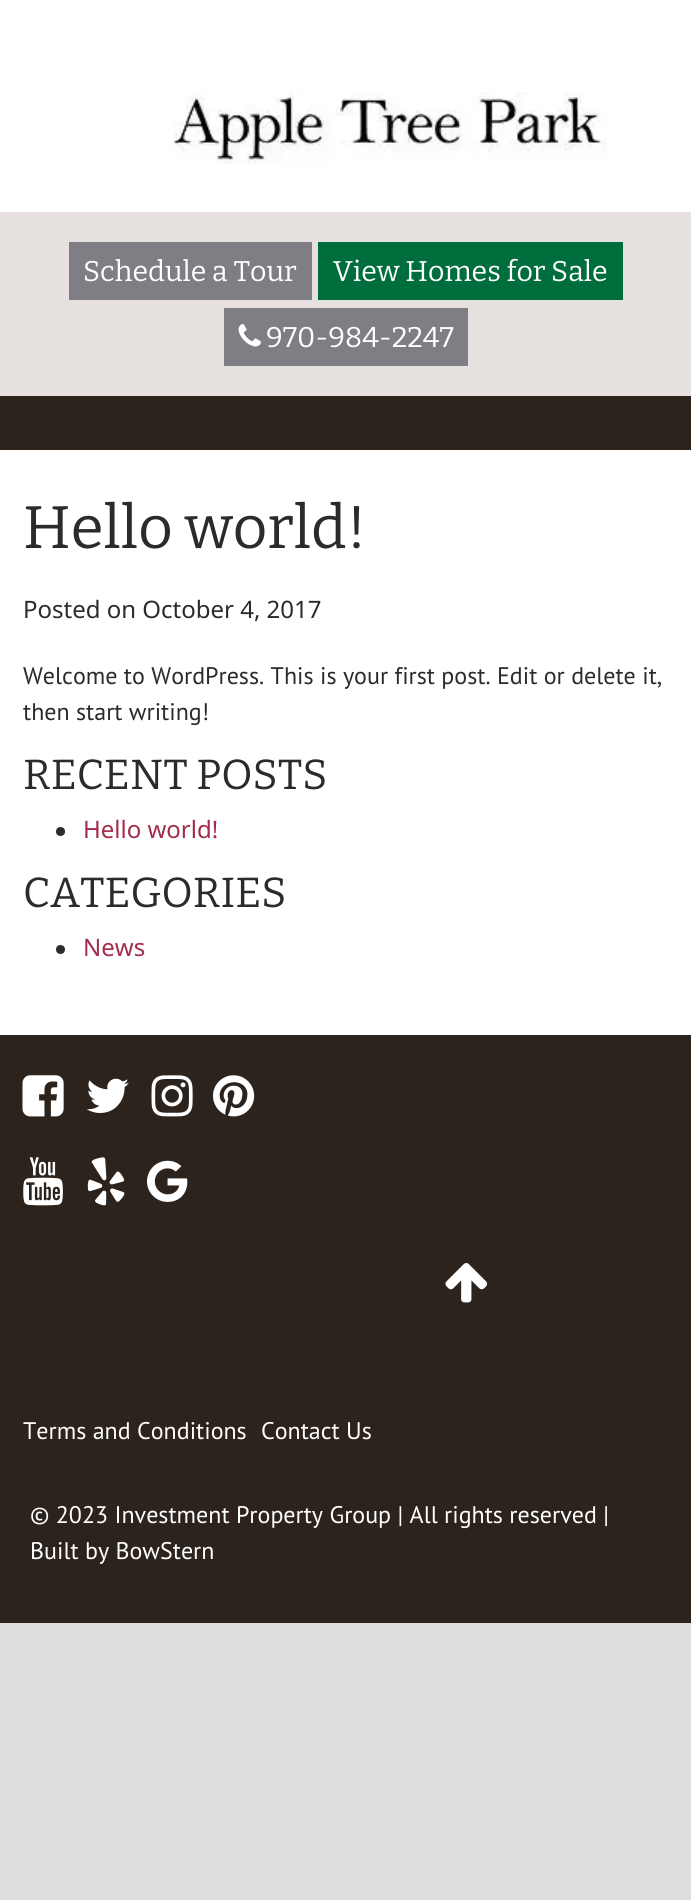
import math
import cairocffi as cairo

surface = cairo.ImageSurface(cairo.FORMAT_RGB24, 691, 1900)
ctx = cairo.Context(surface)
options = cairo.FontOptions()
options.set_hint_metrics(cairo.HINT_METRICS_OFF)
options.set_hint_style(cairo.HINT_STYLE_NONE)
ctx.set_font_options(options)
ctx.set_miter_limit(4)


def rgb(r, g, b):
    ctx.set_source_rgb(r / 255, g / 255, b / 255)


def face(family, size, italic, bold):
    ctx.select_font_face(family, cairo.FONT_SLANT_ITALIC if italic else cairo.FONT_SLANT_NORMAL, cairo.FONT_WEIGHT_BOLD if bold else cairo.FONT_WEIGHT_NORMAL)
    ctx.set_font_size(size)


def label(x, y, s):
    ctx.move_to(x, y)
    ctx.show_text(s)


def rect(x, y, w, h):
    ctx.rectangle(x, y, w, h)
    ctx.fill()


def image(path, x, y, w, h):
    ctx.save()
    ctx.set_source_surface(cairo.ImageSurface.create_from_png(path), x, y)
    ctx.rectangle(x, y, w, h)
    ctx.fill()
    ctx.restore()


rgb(221, 221, 221)
ctx.paint()
rgb(255, 255, 255)
rect(0, 0, 691, 212)
image('image0.png', 173, 91, 434, 73)
rgb(230, 225, 222)
rect(0, 212, 691, 184)
rgb(127, 126, 133)
rect(69, 242, 243, 58)
face('Bitter Thin', 28.5, 0, 0)
rgb(255, 255, 255)
label(83, 281, 'Schedule a Tour')
rgb(0, 110, 60)
rect(318, 242, 305, 58)
rgb(255, 255, 255)
label(333, 281, 'View Homes for Sale')
rgb(127, 126, 133)
rect(224, 308, 244, 58)
image('image1.png', 238, 324, 23, 23)
rgb(255, 255, 255)
label(266, 347, '970-984-2247')
rgb(44, 35, 28)
rect(0, 396, 691, 54)
rgb(255, 255, 255)
rect(0, 450, 691, 585)
face('Bitter Thin', 60, 0, 0)
rgb(41, 43, 44)
label(23, 548, 'Hello world!')
face('Noto Sans', 24, 0, 0)
label(23, 618, 'Posted on October 4, 2017')
face('PT Sans', 24, 0, 0)
label(23, 684, 'Welcome to WordPress. This is your first post. Edit or delete it,')
label(23, 720, 'then start writing!')
face('Bitter Thin', 42, 0, 0)
label(23, 789, 'RECENT POSTS')
ctx.new_path()
ctx.arc(60.5, 831.5, 4.5, 0, 2 * math.pi)
ctx.fill()
face('Noto Sans', 24, 0, 0)
rgb(163, 43, 75)
label(83, 838, 'Hello world!')
face('Bitter Thin', 42, 0, 0)
rgb(41, 43, 44)
label(23, 907, 'CATEGORIES')
ctx.new_path()
ctx.arc(60.5, 949.5, 4.5, 0, 2 * math.pi)
ctx.fill()
face('Noto Sans', 24, 0, 0)
rgb(163, 43, 75)
label(83, 956, 'News')
rgb(44, 35, 28)
rect(0, 1035, 691, 588)
image('image2.png', 22, 1075, 42, 42)
image('image3.png', 86, 1078, 43, 35)
image('image4.png', 151, 1075, 42, 42)
image('image5.png', 213, 1075, 42, 42)
image('image6.png', 23, 1157, 40, 49)
image('image7.png', 87, 1157, 38, 49)
image('image8.png', 147, 1160, 41, 42)
image('image9.png', 445, 1263, 43, 40)
face('PT Sans', 24, 0, 0)
rgb(255, 255, 255)
label(23, 1439, 'Terms and Conditions')
label(261, 1439, 'Contact Us')
label(30, 1523, '© 2023 Investment Property Group | All rights reserved |')
label(30, 1559, 'Built by BowStern')
surface.write_to_png('render.png')
